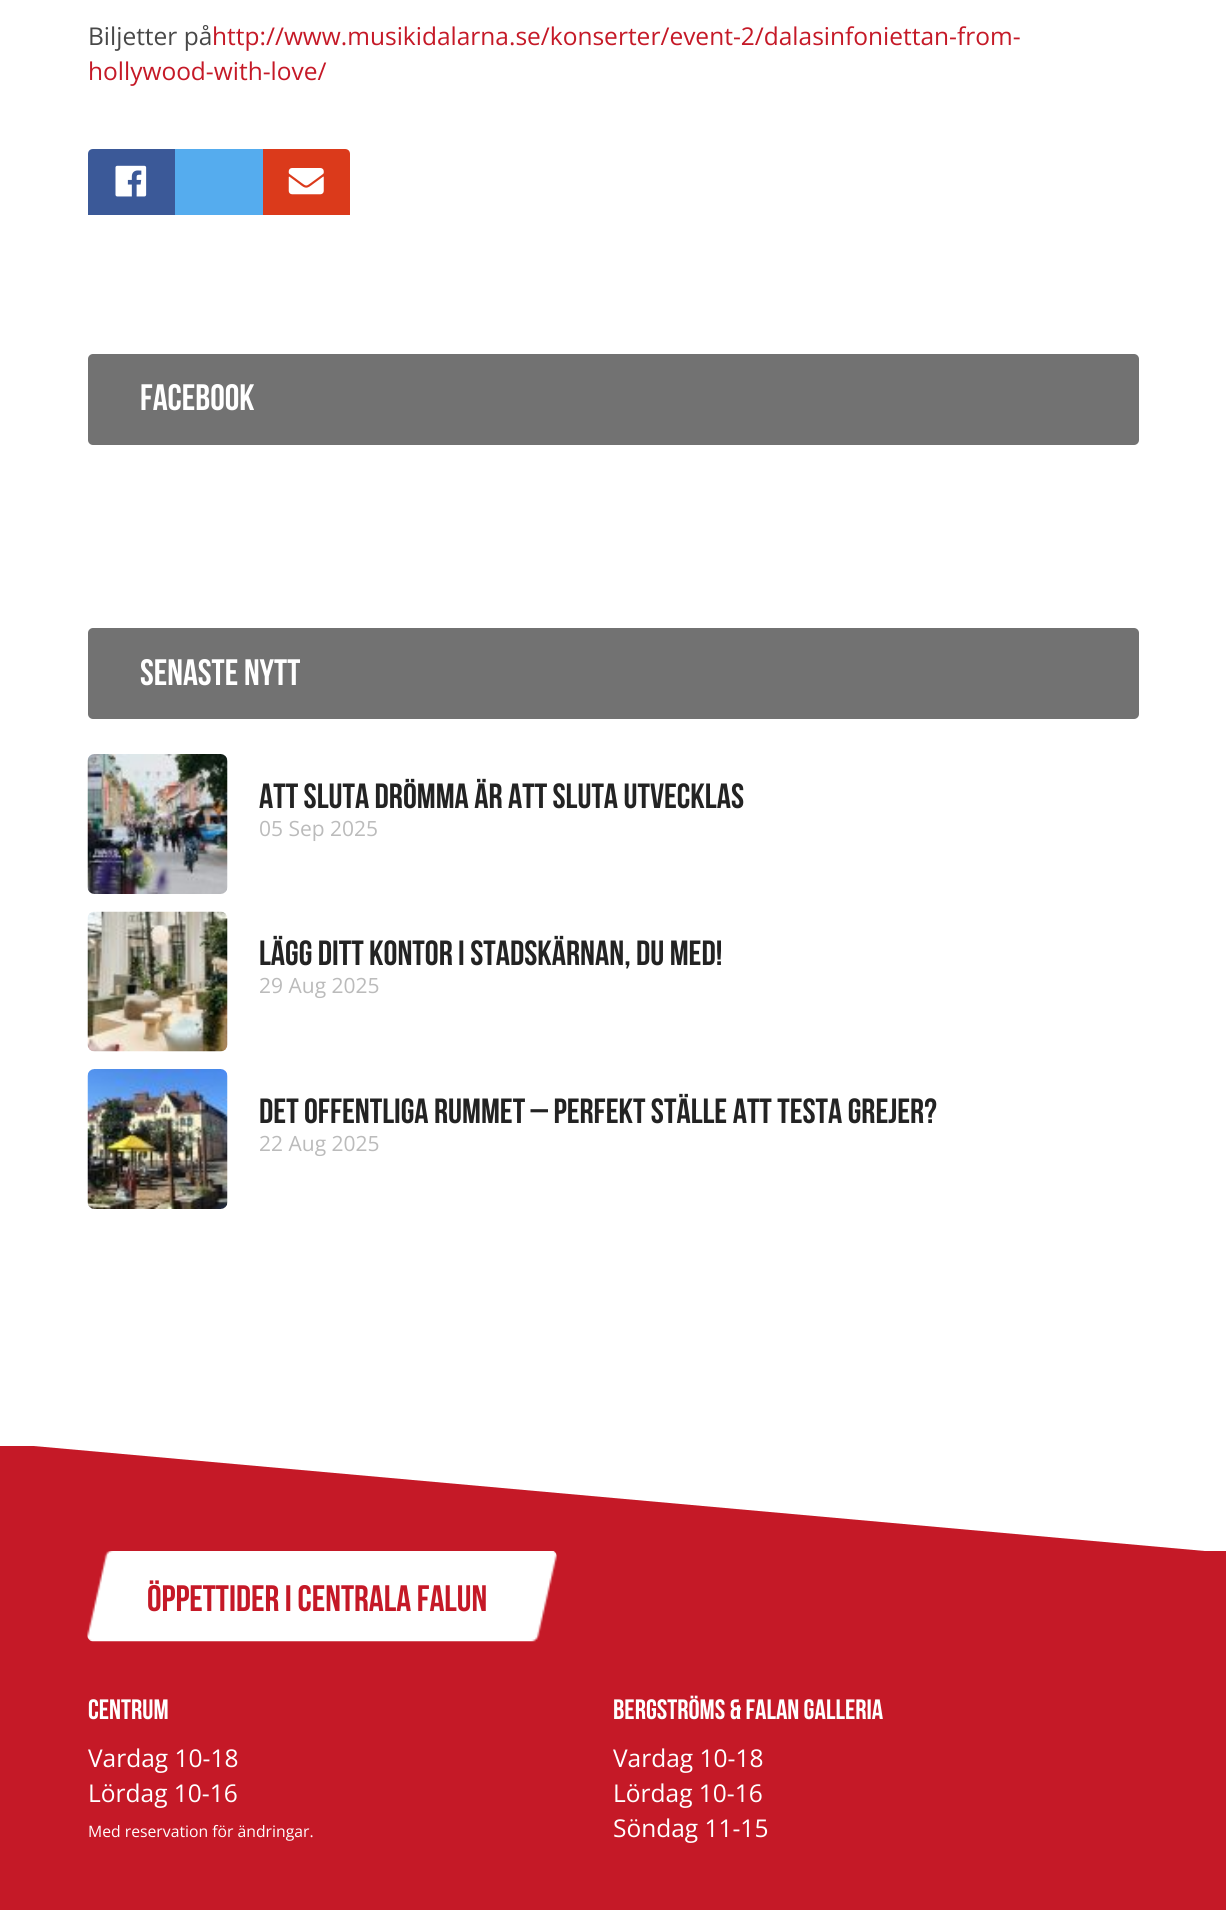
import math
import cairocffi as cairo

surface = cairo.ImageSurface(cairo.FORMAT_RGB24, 1226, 1910)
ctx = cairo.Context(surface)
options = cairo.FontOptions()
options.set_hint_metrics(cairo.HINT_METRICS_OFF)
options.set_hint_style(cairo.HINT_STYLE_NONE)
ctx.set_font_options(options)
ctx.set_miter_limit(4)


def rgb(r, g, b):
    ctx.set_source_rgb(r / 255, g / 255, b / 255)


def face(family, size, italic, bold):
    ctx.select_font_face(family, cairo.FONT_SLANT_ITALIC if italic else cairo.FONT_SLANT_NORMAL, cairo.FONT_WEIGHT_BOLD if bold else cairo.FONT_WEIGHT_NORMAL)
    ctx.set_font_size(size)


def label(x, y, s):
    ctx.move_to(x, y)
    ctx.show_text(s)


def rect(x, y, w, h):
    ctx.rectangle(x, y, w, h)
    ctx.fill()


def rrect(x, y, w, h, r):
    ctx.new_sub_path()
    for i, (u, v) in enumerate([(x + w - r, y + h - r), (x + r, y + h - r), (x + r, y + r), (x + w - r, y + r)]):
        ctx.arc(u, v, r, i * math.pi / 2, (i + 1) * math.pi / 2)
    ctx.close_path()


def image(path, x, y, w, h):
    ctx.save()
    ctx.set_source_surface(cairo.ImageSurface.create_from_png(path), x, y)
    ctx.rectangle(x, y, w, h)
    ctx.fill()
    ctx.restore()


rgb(255, 255, 255)
ctx.paint()
face('Open Sans', 24.5, 0, 0)
rgb(72, 72, 72)
label(88, 45, 'Biljetter på')
rgb(197, 25, 39)
label(212, 45, 'http://www.musikidalarna.se/konserter/event-2/dalasinfoniettan-from-')
label(88, 80, 'hollywood-with-love/')
rgb(59, 89, 152)
ctx.new_path()
ctx.move_to(93, 149)
ctx.line_to(175, 149)
ctx.line_to(175, 215)
ctx.line_to(88, 215)
ctx.line_to(88, 154)
ctx.curve_to(88, 151, 90, 149, 93, 149)
ctx.close_path()
ctx.fill()
image('image0.png', 115, 165, 32, 32)
rgb(85, 172, 238)
rect(175, 149, 88, 66)
rgb(219, 58, 27)
ctx.new_path()
ctx.move_to(263, 149)
ctx.line_to(345, 149)
ctx.curve_to(348, 149, 350, 151, 350, 154)
ctx.line_to(350, 215)
ctx.line_to(263, 215)
ctx.close_path()
ctx.fill()
image('image1.png', 288, 168, 36, 27)
rgb(114, 114, 114)
rrect(88, 354, 1051, 91, 5)
ctx.fill()
face('Bebas Neue', 36.75, 0, 1)
rgb(255, 255, 255)
label(140, 410, 'Facebook')
rgb(114, 114, 114)
rrect(88, 628, 1051, 91, 5)
ctx.fill()
rgb(255, 255, 255)
label(140, 685, 'Senaste nytt')
image('image2.png', 87, 754, 141, 140)
face('Bebas Neue', 35, 0, 1)
rgb(35, 35, 35)
label(259, 808, 'Att sluta drömma är att sluta utvecklas')
face('Open Sans', 21, 0, 0)
rgb(187, 187, 187)
label(259, 836, '05 Sep 2025')
image('image3.png', 87, 911, 141, 141)
face('Bebas Neue', 35, 0, 1)
rgb(35, 35, 35)
label(259, 965, 'Lägg ditt kontor i stadskärnan, du med!')
face('Open Sans', 21, 0, 0)
rgb(187, 187, 187)
label(259, 993, '29 Aug 2025')
image('image4.png', 87, 1069, 141, 140)
face('Bebas Neue', 35, 0, 1)
rgb(35, 35, 35)
label(259, 1123, 'Det offentliga rummet – perfekt ställe att testa grejer?')
face('Open Sans', 21, 0, 0)
rgb(187, 187, 187)
label(259, 1151, '22 Aug 2025')
rgb(197, 25, 39)
rect(0, 1551, 1226, 359)
ctx.save()
ctx.rectangle(0, 1446, 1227, 105)
ctx.clip()
ctx.set_fill_rule(cairo.FILL_RULE_EVEN_ODD)
ctx.new_path()
ctx.move_to(0, 1443)
ctx.line_to(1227, 1553)
ctx.line_to(0, 1553)
ctx.close_path()
ctx.fill()
ctx.restore()
image('image5.png', 87, 1551, 470, 91)
face('Bebas Neue', 36.75, 0, 1)
label(147, 1611, 'Öppettider i centrala Falun')
face('Bebas Neue', 28, 0, 1)
rgb(255, 255, 255)
label(88, 1719, 'Centrum')
face('Open Sans', 24.5, 0, 0)
label(88, 1767, 'Vardag 10-18')
label(88, 1802, 'Lördag 10-16')
face('Open Sans', 15.75, 0, 0)
label(88, 1837, 'Med reservation för ändringar.')
face('Bebas Neue', 28, 0, 1)
label(613, 1719, 'Bergströms & Falan galleria')
face('Open Sans', 24.5, 0, 0)
label(613, 1767, 'Vardag 10-18')
label(613, 1802, 'Lördag 10-16')
label(613, 1837, 'Söndag 11-15')
surface.write_to_png('render.png')
